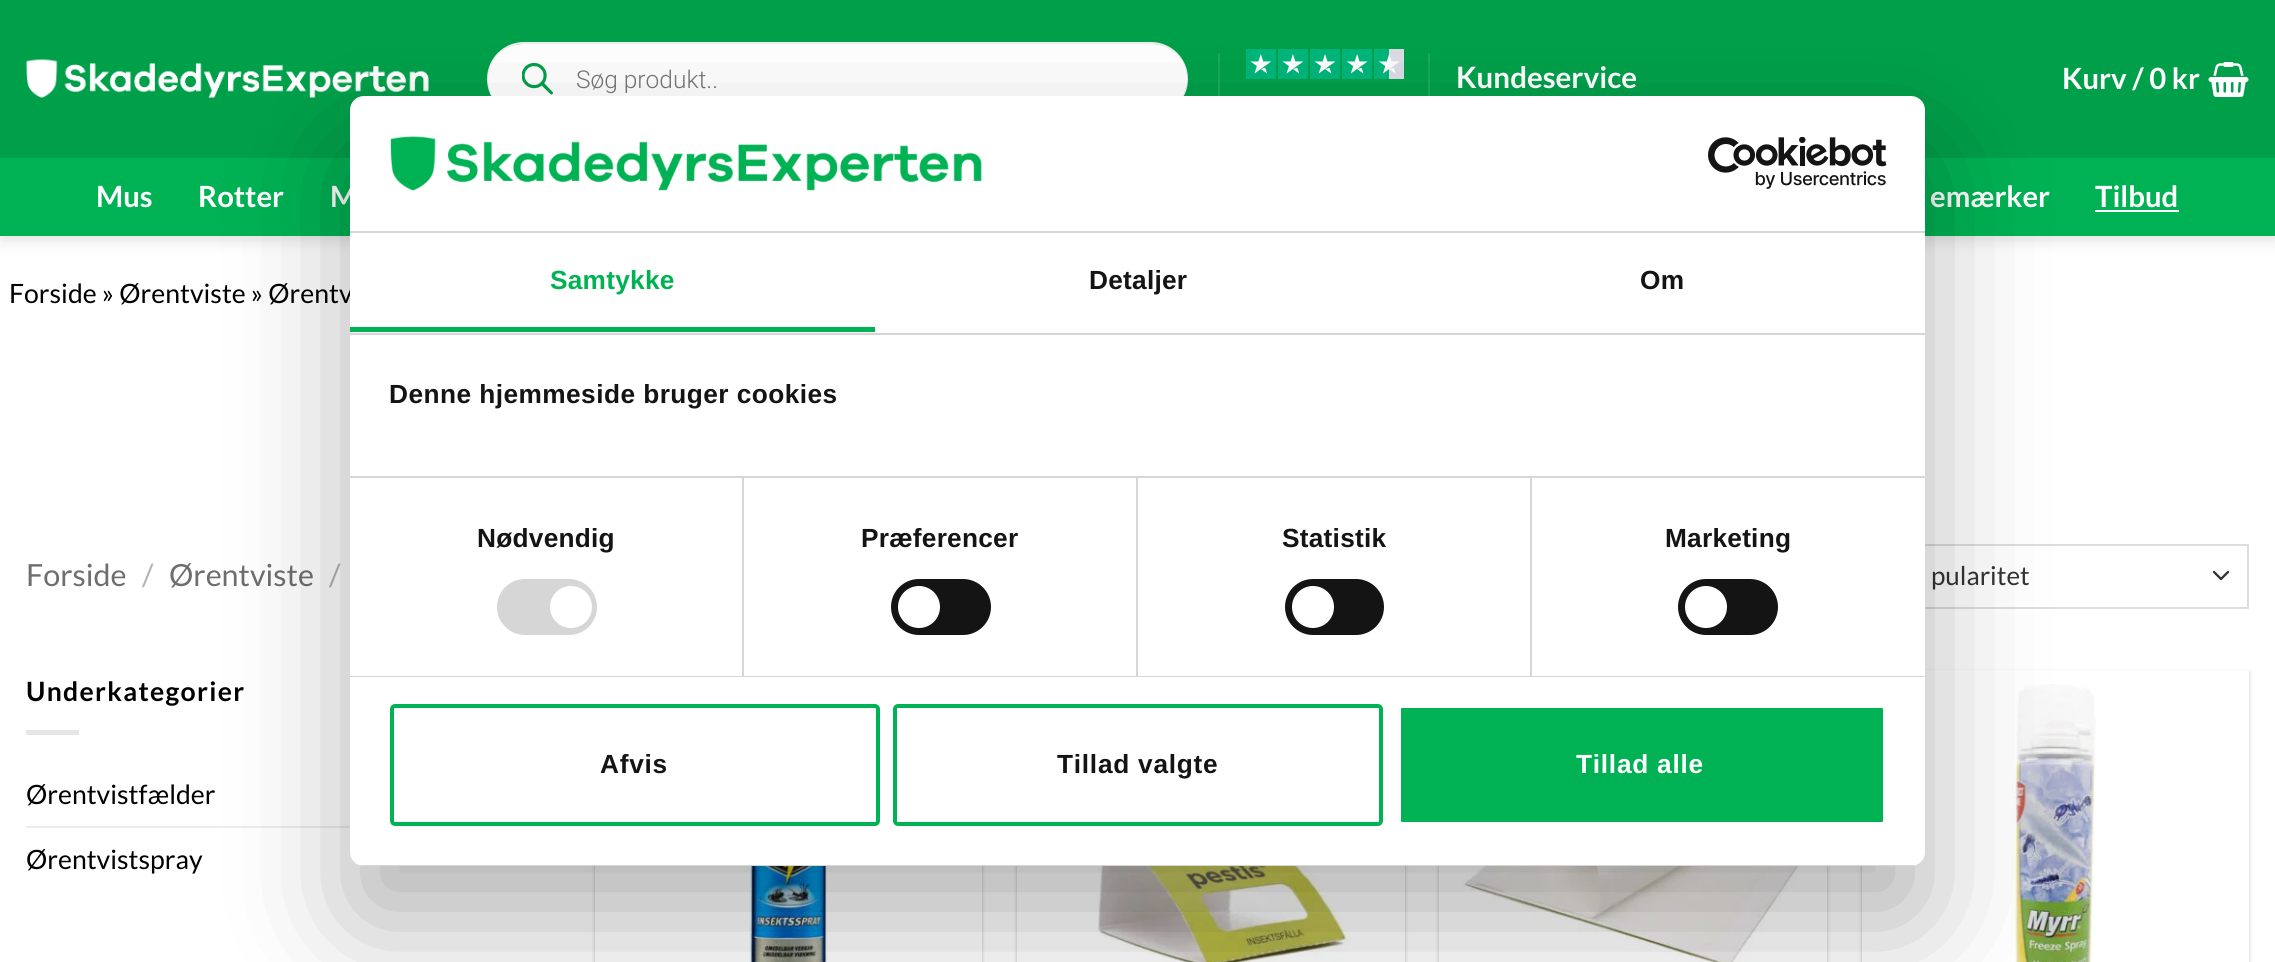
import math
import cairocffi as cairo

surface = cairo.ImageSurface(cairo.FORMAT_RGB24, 2275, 962)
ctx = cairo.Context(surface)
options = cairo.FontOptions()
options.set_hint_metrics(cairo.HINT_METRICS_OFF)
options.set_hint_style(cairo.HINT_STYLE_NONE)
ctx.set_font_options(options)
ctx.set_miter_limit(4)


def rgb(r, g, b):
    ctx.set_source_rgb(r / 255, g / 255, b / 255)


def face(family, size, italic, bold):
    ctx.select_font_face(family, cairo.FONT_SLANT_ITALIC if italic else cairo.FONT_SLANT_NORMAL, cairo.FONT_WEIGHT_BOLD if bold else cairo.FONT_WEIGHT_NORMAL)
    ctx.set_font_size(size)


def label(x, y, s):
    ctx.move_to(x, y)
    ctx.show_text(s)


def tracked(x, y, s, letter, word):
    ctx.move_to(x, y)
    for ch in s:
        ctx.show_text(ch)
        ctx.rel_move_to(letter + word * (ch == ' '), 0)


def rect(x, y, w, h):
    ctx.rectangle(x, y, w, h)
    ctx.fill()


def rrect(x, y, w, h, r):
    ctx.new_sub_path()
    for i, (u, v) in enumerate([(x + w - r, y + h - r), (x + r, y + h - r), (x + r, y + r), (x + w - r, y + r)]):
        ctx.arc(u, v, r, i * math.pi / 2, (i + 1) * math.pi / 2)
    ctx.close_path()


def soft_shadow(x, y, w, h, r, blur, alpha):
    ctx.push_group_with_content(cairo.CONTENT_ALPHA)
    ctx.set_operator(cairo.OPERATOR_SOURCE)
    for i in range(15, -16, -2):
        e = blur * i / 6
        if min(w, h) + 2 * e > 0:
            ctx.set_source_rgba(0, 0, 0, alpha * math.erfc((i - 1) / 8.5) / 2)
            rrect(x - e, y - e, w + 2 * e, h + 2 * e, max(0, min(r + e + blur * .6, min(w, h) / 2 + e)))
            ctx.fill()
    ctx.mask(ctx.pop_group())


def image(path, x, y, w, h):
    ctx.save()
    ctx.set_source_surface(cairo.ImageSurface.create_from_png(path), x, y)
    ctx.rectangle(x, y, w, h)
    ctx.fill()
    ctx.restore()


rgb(255, 255, 255)
ctx.paint()
rgb(0, 0, 0)
soft_shadow(2, 2, 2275, 236, 0, 9, 0.15)
rgb(0, 160, 74)
rect(0, 0, 2275, 158)
image('image0.png', 26, 59, 403, 39)
rrect(488, 43, 699, 72, 36)
rgb(238, 238, 238)
ctx.stroke()
rgb(255, 255, 255)
rrect(488, 44, 699, 70, 35)
ctx.fill()
image('image1.png', 522, 63, 31, 32)
face('Roboto Light', 24.5, 0, 0)
rgb(119, 119, 119)
label(576, 88, 'Søg produkt..')
rgb(26, 170, 92)
rect(1218, 53, 2, 43)
image('image2.png', 1246, 49, 158, 30)
rect(1428, 53, 2, 43)
face('Lato', 29.5, 0, 1)
rgb(255, 255, 255)
label(1456, 88, 'Kundeservice')
face('Lato', 29.25, 0, 1)
label(2062, 89, 'Kurv / 0 kr')
image('image3.png', 2208, 62, 41, 35)
rgb(0, 178, 83)
rect(0, 158, 2275, 78)
rgb(255, 255, 255)
label(96, 207, 'Mus')
label(198, 207, 'Rotter')
label(330, 207, 'M')
label(1930, 207, 'emærker')
label(2095, 207, 'Tilbud')
rect(2095, 210, 84, 2)
face('Lato', 26.6, 0, 0)
rgb(0, 0, 0)
label(9, 303, 'Forside » Ørentviste » Ørentv')
face('Lato', 30.5, 0, 0)
rgb(110, 110, 110)
label(26, 586, 'Forside')
rgb(178, 178, 178)
label(142, 586, '/')
rgb(110, 110, 110)
label(169, 586, 'Ørentviste')
rgb(178, 178, 178)
label(329, 586, '/')
ctx.new_path()
ctx.move_to(2214, 572)
ctx.line_to(2221, 579)
ctx.line_to(2228, 572)
rgb(51, 51, 51)
ctx.set_line_width(2.3)
ctx.set_line_cap(cairo.LINE_CAP_ROUND)
ctx.set_line_join(cairo.LINE_JOIN_ROUND)
ctx.stroke()
ctx.rectangle(1744, 545, 504, 63)
rgb(221, 221, 221)
ctx.set_line_width(2)
ctx.set_line_cap(cairo.LINE_CAP_BUTT)
ctx.set_line_join(cairo.LINE_JOIN_MITER)
ctx.stroke()
face('Lato', 26, 0, 0)
rgb(51, 51, 51)
label(1931, 585, 'pularitet')
face('Lato', 26.6, 0, 1)
rgb(0, 0, 0)
tracked(26, 701, 'Underkategorier', 1.3, 0)
rgb(230, 230, 230)
rect(26, 730, 53, 5)
face('Lato', 26.6, 0, 0)
rgb(0, 0, 0)
label(26, 804, 'Ørentvistfælder')
rgb(236, 236, 236)
rect(26, 826, 324, 2)
rgb(0, 0, 0)
label(26, 869, 'Ørentvistspray')
rgb(0, 0, 0)
soft_shadow(595, 672, 387, 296, 0, 2, 0.24)
rgb(255, 255, 255)
rect(595, 866, 387, 96)
image('image4.png', 749, 866, 78, 96)
rgb(0, 0, 0)
soft_shadow(1017, 672, 388, 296, 0, 2, 0.24)
rgb(255, 255, 255)
rect(1017, 866, 388, 96)
image('image5.png', 1098, 866, 277, 96)
rgb(0, 0, 0)
soft_shadow(1439, 672, 388, 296, 0, 2, 0.24)
rgb(255, 255, 255)
rect(1439, 866, 388, 96)
image('image6.png', 1462, 866, 340, 96)
rgb(0, 0, 0)
soft_shadow(1862, 672, 387, 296, 0, 2, 0.24)
rgb(255, 255, 255)
rect(1862, 670, 387, 292)
image('image7.png', 2011, 684, 85, 278)
rgb(0, 0, 0)
soft_shadow(350, 152, 1575, 770, 14, 59.5, 0.3)
rgb(255, 255, 255)
rrect(350, 96, 1575, 770, 14)
ctx.fill()
rgb(214, 214, 214)
rect(350, 231, 1575, 2)
image('image8.png', 390, 136, 592, 55)
image('image9.png', 1708, 137, 179, 52)
rect(350, 333, 1575, 2)
rgb(0, 178, 83)
rect(350, 327, 525, 5)
face('Liberation Sans', 26.25, 0, 1)
tracked(550, 289, 'Samtykke', 0.25, 0)
rgb(20, 20, 20)
tracked(1089, 289, 'Detaljer', 0.25, 0)
tracked(1640, 289, 'Om', 0.25, 0)
rgb(214, 214, 214)
rect(350, 476, 1575, 2)
rgb(20, 20, 20)
tracked(389, 403, 'Denne hjemmeside bruger cookies', 0.45, 0)
gradient = cairo.LinearGradient(1120, 476, 1120, 406)
gradient.add_color_stop_rgba(0, 1, 1, 1, 1)
gradient.add_color_stop_rgba(0.5, 1, 1, 1, 0.8)
gradient.add_color_stop_rgba(1, 1, 1, 1, 0)
ctx.set_source(gradient)
rect(495, 407, 204, 2)
rgb(214, 214, 214)
rect(350, 676, 1575, 1)
rect(742, 478, 2, 198)
rgb(20, 20, 20)
tracked(477, 547, 'Nødvendig', 0.25, 0)
rgb(214, 214, 214)
rrect(497, 579, 100, 56, 28)
ctx.fill()
rgb(255, 255, 255)
ctx.arc(571, 607, 21, 0, 2 * math.pi)
ctx.fill()
rgb(214, 214, 214)
rect(1136, 478, 2, 198)
rgb(20, 20, 20)
tracked(861, 547, 'Præferencer', 0.25, 0)
rrect(891, 579, 100, 56, 28)
ctx.fill()
rgb(255, 255, 255)
ctx.arc(919, 607, 21, 0, 2 * math.pi)
ctx.fill()
rgb(214, 214, 214)
rect(1530, 478, 2, 198)
rgb(20, 20, 20)
tracked(1282, 547, 'Statistik', 0.25, 0)
rrect(1285, 579, 99, 56, 28)
ctx.fill()
rgb(255, 255, 255)
ctx.arc(1313, 607, 21, 0, 2 * math.pi)
ctx.fill()
rgb(20, 20, 20)
tracked(1665, 547, 'Marketing', 0.25, 0)
rrect(1678, 579, 100, 56, 28)
ctx.fill()
rgb(255, 255, 255)
ctx.arc(1706, 607, 21, 0, 2 * math.pi)
ctx.fill()
ctx.save()
rrect(350, 96, 1575, 770, 14)
ctx.clip()
rgb(214, 214, 214)
rect(359, 865, 1557, 1)
ctx.restore()
rrect(392, 706, 486, 118, 3)
rgb(0, 178, 83)
ctx.set_line_width(4)
ctx.stroke()
rgb(20, 20, 20)
tracked(600, 773, 'Afvis', 0.75, 0)
rrect(895, 706, 486, 118, 3)
rgb(0, 178, 83)
ctx.stroke()
rgb(20, 20, 20)
tracked(1057, 773, 'Tillad valgte', 0.75, 0)
rgb(0, 178, 83)
rrect(1399, 706, 486, 118, 3)
ctx.fill_preserve()
rgb(255, 255, 255)
ctx.stroke()
tracked(1576, 773, 'Tillad alle', 0.75, 0)
surface.write_to_png('render.png')
